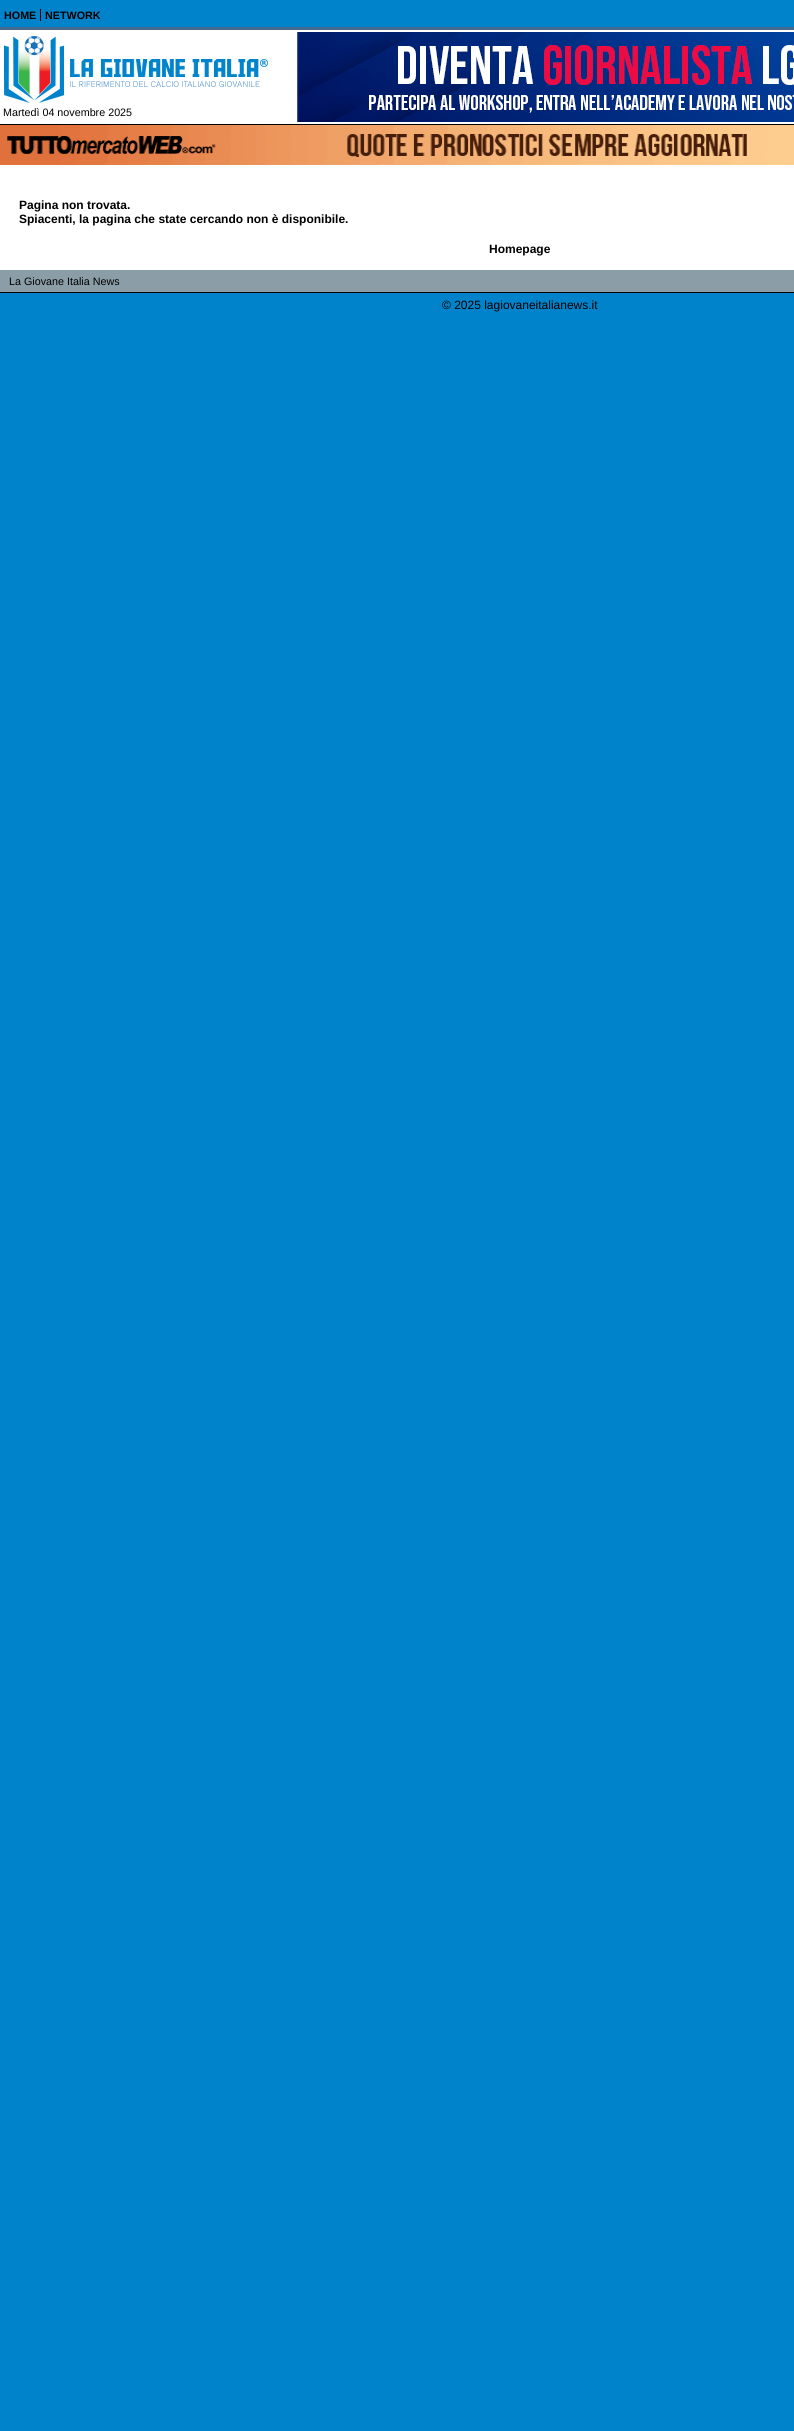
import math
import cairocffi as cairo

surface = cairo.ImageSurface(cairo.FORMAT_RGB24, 794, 2431)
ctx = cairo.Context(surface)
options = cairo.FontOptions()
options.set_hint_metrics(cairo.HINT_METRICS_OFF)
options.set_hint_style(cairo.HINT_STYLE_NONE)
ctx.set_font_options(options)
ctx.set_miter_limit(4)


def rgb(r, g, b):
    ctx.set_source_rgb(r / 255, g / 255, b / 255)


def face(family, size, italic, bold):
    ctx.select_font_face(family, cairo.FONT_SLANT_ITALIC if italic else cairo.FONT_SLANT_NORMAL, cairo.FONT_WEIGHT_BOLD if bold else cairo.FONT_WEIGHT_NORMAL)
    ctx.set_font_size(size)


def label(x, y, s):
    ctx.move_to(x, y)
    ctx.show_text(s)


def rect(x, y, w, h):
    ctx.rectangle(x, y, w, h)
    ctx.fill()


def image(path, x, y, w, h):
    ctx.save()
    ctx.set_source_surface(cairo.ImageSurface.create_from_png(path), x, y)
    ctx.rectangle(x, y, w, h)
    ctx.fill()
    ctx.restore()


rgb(0, 131, 203)
ctx.paint()
rgb(69, 104, 138)
rect(0, 27, 794, 3)
face('Liberation Sans', 10.75, 0, 1)
rgb(0, 0, 0)
label(4, 19, 'HOME')
rect(40, 9, 1, 12)
label(45, 19, 'NETWORK')
rgb(255, 255, 255)
rect(0, 30, 794, 94)
rgb(0, 0, 0)
rect(0, 124, 794, 1)
image('image0.png', 4, 36, 264, 67)
face('Liberation Sans', 10.75, 0, 0)
label(3, 116, 'Martedì 04 novembre 2025')
image('image1.png', 297, 32, 497, 90)
image('image2.png', 0, 125, 794, 40)
rgb(255, 255, 255)
rect(0, 165, 794, 105)
face('Liberation Sans', 12, 0, 1)
rgb(0, 0, 0)
label(19, 209, 'Pagina non trovata.')
label(19, 223, 'Spiacenti, la pagina che state cercando non è disponibile.')
label(489, 253, 'Homepage')
rgb(139, 158, 167)
rect(0, 270, 794, 22)
face('Liberation Sans', 10.75, 0, 0)
rgb(0, 0, 0)
label(9, 285, 'La Giovane Italia News')
rect(0, 292, 794, 1)
face('Liberation Sans', 12, 0, 0)
label(442, 309, '© 2025 lagiovaneitalianews.it')
surface.write_to_png('render.png')
